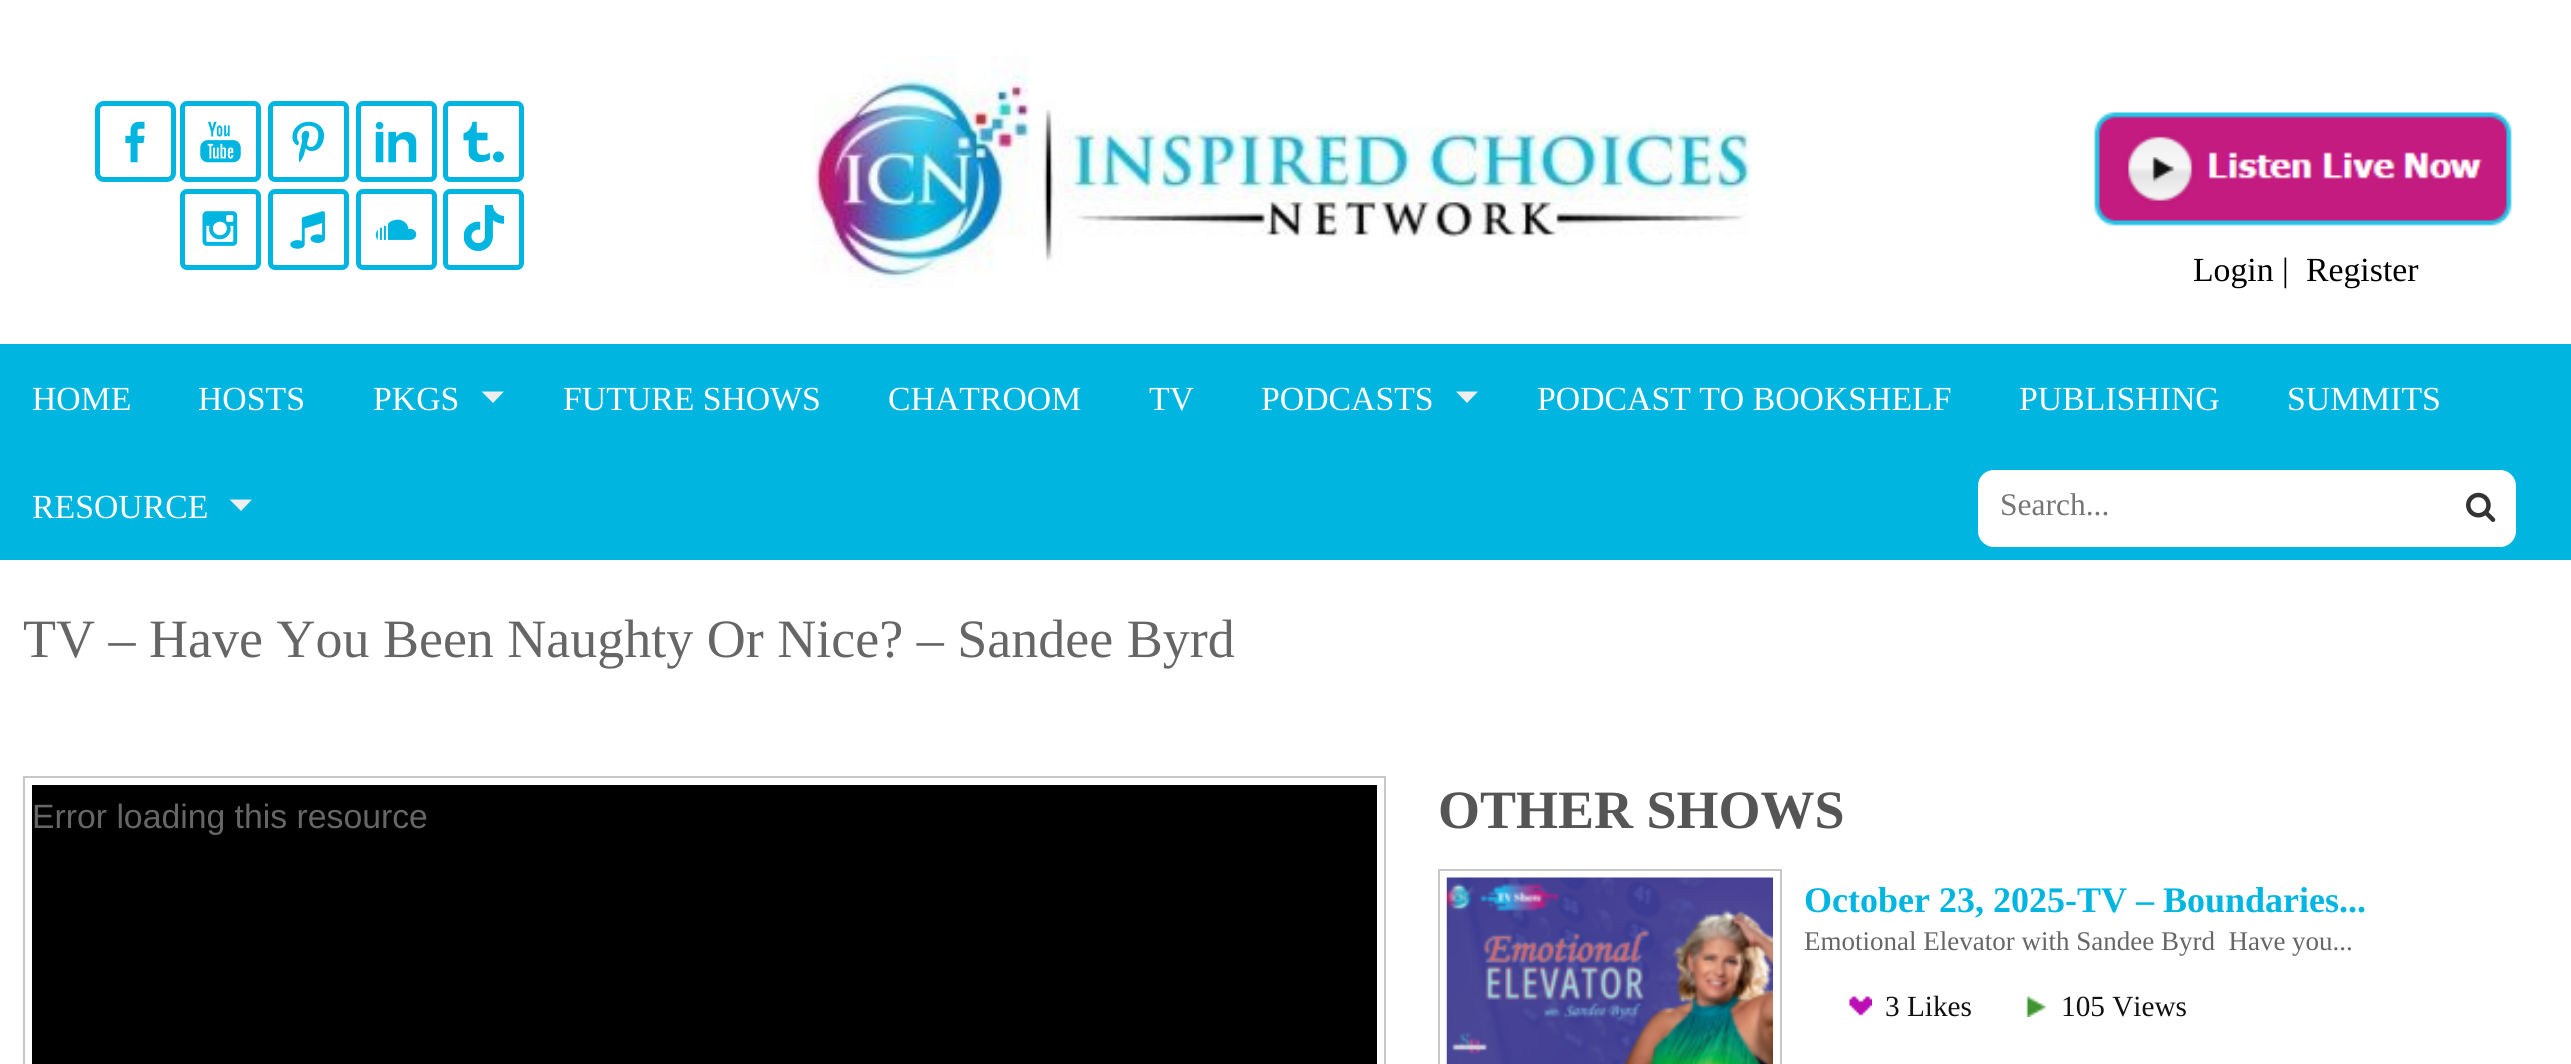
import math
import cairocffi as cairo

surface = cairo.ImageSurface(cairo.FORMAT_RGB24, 2571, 1064)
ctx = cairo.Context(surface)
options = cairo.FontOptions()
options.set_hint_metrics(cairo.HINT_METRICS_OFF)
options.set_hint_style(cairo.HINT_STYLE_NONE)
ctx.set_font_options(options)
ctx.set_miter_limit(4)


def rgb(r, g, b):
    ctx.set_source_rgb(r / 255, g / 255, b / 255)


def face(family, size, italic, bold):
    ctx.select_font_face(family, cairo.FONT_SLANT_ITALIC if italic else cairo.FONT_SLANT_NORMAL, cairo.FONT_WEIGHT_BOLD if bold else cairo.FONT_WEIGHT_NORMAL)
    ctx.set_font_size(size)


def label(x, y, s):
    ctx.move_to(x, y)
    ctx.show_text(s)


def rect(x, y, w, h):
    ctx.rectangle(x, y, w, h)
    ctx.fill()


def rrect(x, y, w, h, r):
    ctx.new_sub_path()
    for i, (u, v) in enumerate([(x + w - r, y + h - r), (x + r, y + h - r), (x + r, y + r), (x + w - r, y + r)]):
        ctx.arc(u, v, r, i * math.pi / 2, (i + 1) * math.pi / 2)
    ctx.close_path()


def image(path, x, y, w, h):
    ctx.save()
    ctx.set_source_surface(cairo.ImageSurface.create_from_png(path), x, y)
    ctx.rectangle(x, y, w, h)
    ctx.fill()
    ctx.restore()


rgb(255, 255, 255)
ctx.paint()
rrect(97.5, 103.5, 76, 76, 6.5)
rgb(0, 182, 225)
ctx.set_line_width(5)
ctx.stroke()
image('image0.png', 125, 121, 20, 42)
rrect(182.5, 103.5, 76, 76, 4.5)
ctx.stroke()
image('image1.png', 200, 121, 41, 42)
rrect(270.5, 103.5, 76, 76, 4.5)
ctx.stroke()
image('image2.png', 292, 121, 33, 42)
rrect(358.5, 103.5, 76, 76, 4.5)
ctx.stroke()
image('image3.png', 375, 121, 42, 42)
rrect(445.5, 103.5, 76, 76, 4.5)
ctx.stroke()
image('image4.png', 463, 121, 41, 42)
rrect(182.5, 191.5, 76, 76, 4.5)
ctx.stroke()
image('image5.png', 202, 211, 36, 35)
rrect(270.5, 191.5, 76, 76, 4.5)
ctx.stroke()
image('image6.png', 290, 211, 35, 38)
rrect(358.5, 191.5, 76, 76, 4.5)
ctx.stroke()
image('image7.png', 375, 219, 42, 21)
rrect(445.5, 191.5, 76, 76, 4.5)
ctx.stroke()
image('image8.png', 464, 205, 40, 47)
image('image9.png', 811, 56, 941, 232)
image('image10.png', 2094, 112, 418, 114)
face('Liberation Serif', 33.75, 0, 0)
rgb(0, 0, 0)
label(2193, 281, 'Login |')
label(2306, 281, 'Register')
rgb(0, 182, 225)
rect(0, 344, 2571, 216)
rgb(255, 255, 255)
label(32, 410, 'HOME')
label(198, 410, 'HOSTS')
label(373, 410, 'PKGS')
rgb(238, 238, 238)
ctx.new_path()
ctx.move_to(481.5, 391.5)
ctx.line_to(504, 391.5)
ctx.line_to(493, 403)
ctx.close_path()
ctx.fill()
rgb(255, 255, 255)
label(563, 410, 'FUTURE SHOWS')
label(888, 410, 'CHATROOM')
label(1149, 410, 'TV')
label(1261, 410, 'PODCASTS')
rgb(238, 238, 238)
ctx.new_path()
ctx.move_to(1456, 391.5)
ctx.line_to(1478, 391.5)
ctx.line_to(1467, 403)
ctx.close_path()
ctx.fill()
rgb(255, 255, 255)
label(1537, 410, 'PODCAST TO BOOKSHELF')
label(2019, 410, 'PUBLISHING')
label(2287, 410, 'SUMMITS')
label(32, 518, 'RESOURCE')
rgb(238, 238, 238)
ctx.new_path()
ctx.move_to(229.5, 499.5)
ctx.line_to(252, 499.5)
ctx.line_to(241, 511)
ctx.close_path()
ctx.fill()
rgb(255, 255, 255)
rrect(1978, 470, 538, 77, 16)
ctx.fill()
face('Liberation Serif', 31.5, 0, 0)
rgb(117, 117, 117)
label(2000, 515, 'Search...')
image('image11.png', 2466, 492, 30, 30)
face('Liberation Serif', 54, 0, 0)
rgb(102, 102, 102)
label(23, 657, 'TV – Have You Been Naughty Or Nice? – Sandee Byrd')
ctx.rectangle(24, 777, 1361, 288)
rgb(199, 199, 199)
ctx.set_line_width(2)
ctx.stroke()
rgb(0, 0, 0)
rect(32, 785, 1345, 279)
face('Liberation Sans', 33.75, 0, 0)
rgb(102, 102, 102)
label(32, 828, 'Error loading this resource')
face('Liberation Serif', 54, 0, 1)
rgb(85, 85, 85)
label(1438, 828, 'OTHER SHOWS')
ctx.rectangle(1439, 870, 342, 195)
rgb(199, 199, 199)
ctx.stroke()
image('image12.png', 1446, 877, 327, 187)
face('Liberation Serif', 36, 0, 1)
rgb(0, 182, 225)
label(1804, 912, 'October 23, 2025-TV – Boundaries...')
face('Liberation Serif', 27, 0, 0)
rgb(102, 102, 102)
label(1804, 950, 'Emotional Elevator with Sandee Byrd  Have you...')
image('image13.png', 1849, 996, 23, 20)
face('Liberation Serif', 29.25, 0, 0)
rgb(17, 17, 17)
label(1885, 1016, '3 Likes')
image('image14.png', 2026, 996, 20, 21)
label(2061, 1016, '105 Views')
surface.write_to_png('render.png')
